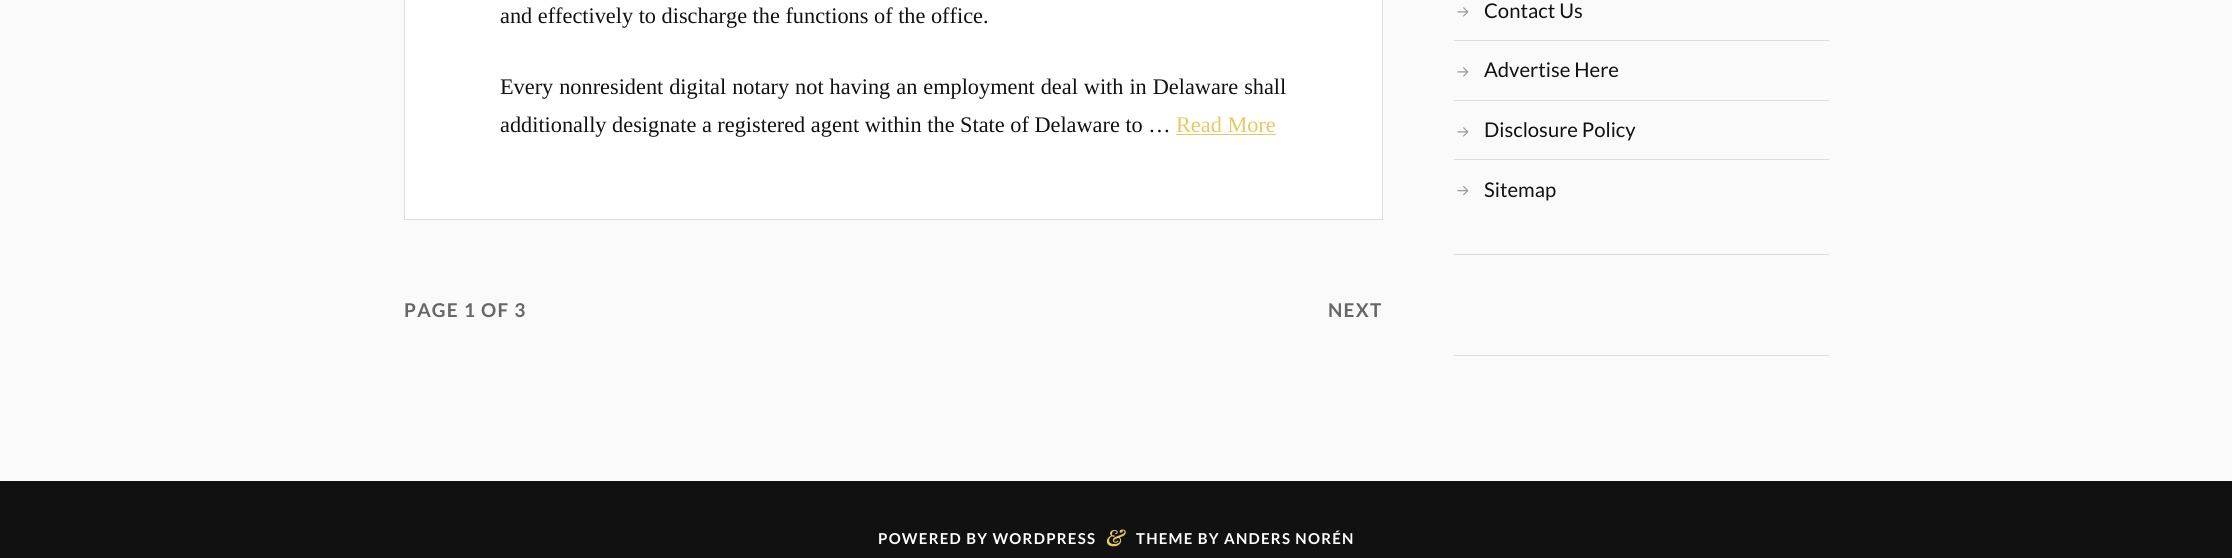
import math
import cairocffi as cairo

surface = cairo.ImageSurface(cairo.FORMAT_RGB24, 2232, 558)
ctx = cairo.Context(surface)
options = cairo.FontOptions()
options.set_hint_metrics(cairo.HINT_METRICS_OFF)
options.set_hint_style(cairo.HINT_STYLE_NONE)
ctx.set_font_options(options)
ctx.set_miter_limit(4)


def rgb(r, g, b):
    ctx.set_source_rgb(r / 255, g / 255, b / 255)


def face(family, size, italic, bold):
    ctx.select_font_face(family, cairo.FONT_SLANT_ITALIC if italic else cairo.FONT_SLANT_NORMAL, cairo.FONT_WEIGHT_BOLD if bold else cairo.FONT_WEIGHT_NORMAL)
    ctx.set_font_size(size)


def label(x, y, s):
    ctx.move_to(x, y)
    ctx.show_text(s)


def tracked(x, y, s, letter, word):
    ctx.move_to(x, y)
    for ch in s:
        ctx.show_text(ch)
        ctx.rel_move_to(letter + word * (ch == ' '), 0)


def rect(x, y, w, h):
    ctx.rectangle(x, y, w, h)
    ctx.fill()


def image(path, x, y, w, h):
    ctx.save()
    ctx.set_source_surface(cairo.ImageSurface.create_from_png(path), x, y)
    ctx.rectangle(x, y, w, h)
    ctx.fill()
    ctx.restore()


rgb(250, 250, 250)
ctx.paint()
rgb(255, 255, 255)
ctx.rectangle(404.5, -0.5, 978, 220)
ctx.fill_preserve()
rgb(221, 221, 221)
ctx.set_line_width(1)
ctx.stroke()
face('Liberation Serif', 22.3, 0, 0)
rgb(17, 17, 17)
label(500, 23, 'and effectively to discharge the functions of the office.')
tracked(500, 94, 'Every nonresident digital notary not having an employment deal with in Delaware shall', 0, 0.4)
label(500, 132, 'additionally designate a registered agent within the State of Delaware to …')
rgb(229, 201, 100)
label(1176, 132, 'Read More')
rect(1176, 134, 100, 1)
face('Lato', 19, 0, 1)
rgb(102, 102, 102)
tracked(404, 317, 'PAGE 1 OF 3', 1.25, 0)
tracked(1328, 317, 'NEXT', 1.25, 0)
rgb(221, 221, 221)
rect(1454, 40, 375, 1)
image('image0.png', 1457, 7, 12, 10)
face('Lato', 20.25, 0, 0)
rgb(17, 17, 17)
label(1484, 18, 'Contact Us')
rgb(221, 221, 221)
rect(1454, 100, 375, 1)
image('image0.png', 1457, 67, 12, 10)
rgb(17, 17, 17)
label(1484, 77, 'Advertise Here')
rgb(221, 221, 221)
rect(1454, 159, 375, 1)
image('image0.png', 1457, 127, 12, 10)
rgb(17, 17, 17)
label(1484, 137, 'Disclosure Policy')
image('image1.png', 1457, 186, 12, 10)
label(1484, 197, 'Sitemap')
rgb(221, 221, 221)
rect(1454, 254, 375, 1)
rect(1454, 355, 375, 1)
rgb(17, 17, 17)
rect(0, 481, 2232, 77)
face('Lato', 15, 0, 1)
rgb(255, 255, 255)
tracked(878, 544, 'POWERED BY WORDPRESS', 1.25, 0)
face('Playfair Display', 22, 1, 1)
rgb(229, 201, 100)
tracked(1106, 546, '&', 1.25, 0)
face('Lato', 15, 0, 1)
rgb(255, 255, 255)
tracked(1136, 544, 'THEME BY ANDERS NORÉN', 1.25, 0)
surface.write_to_png('render.png')
